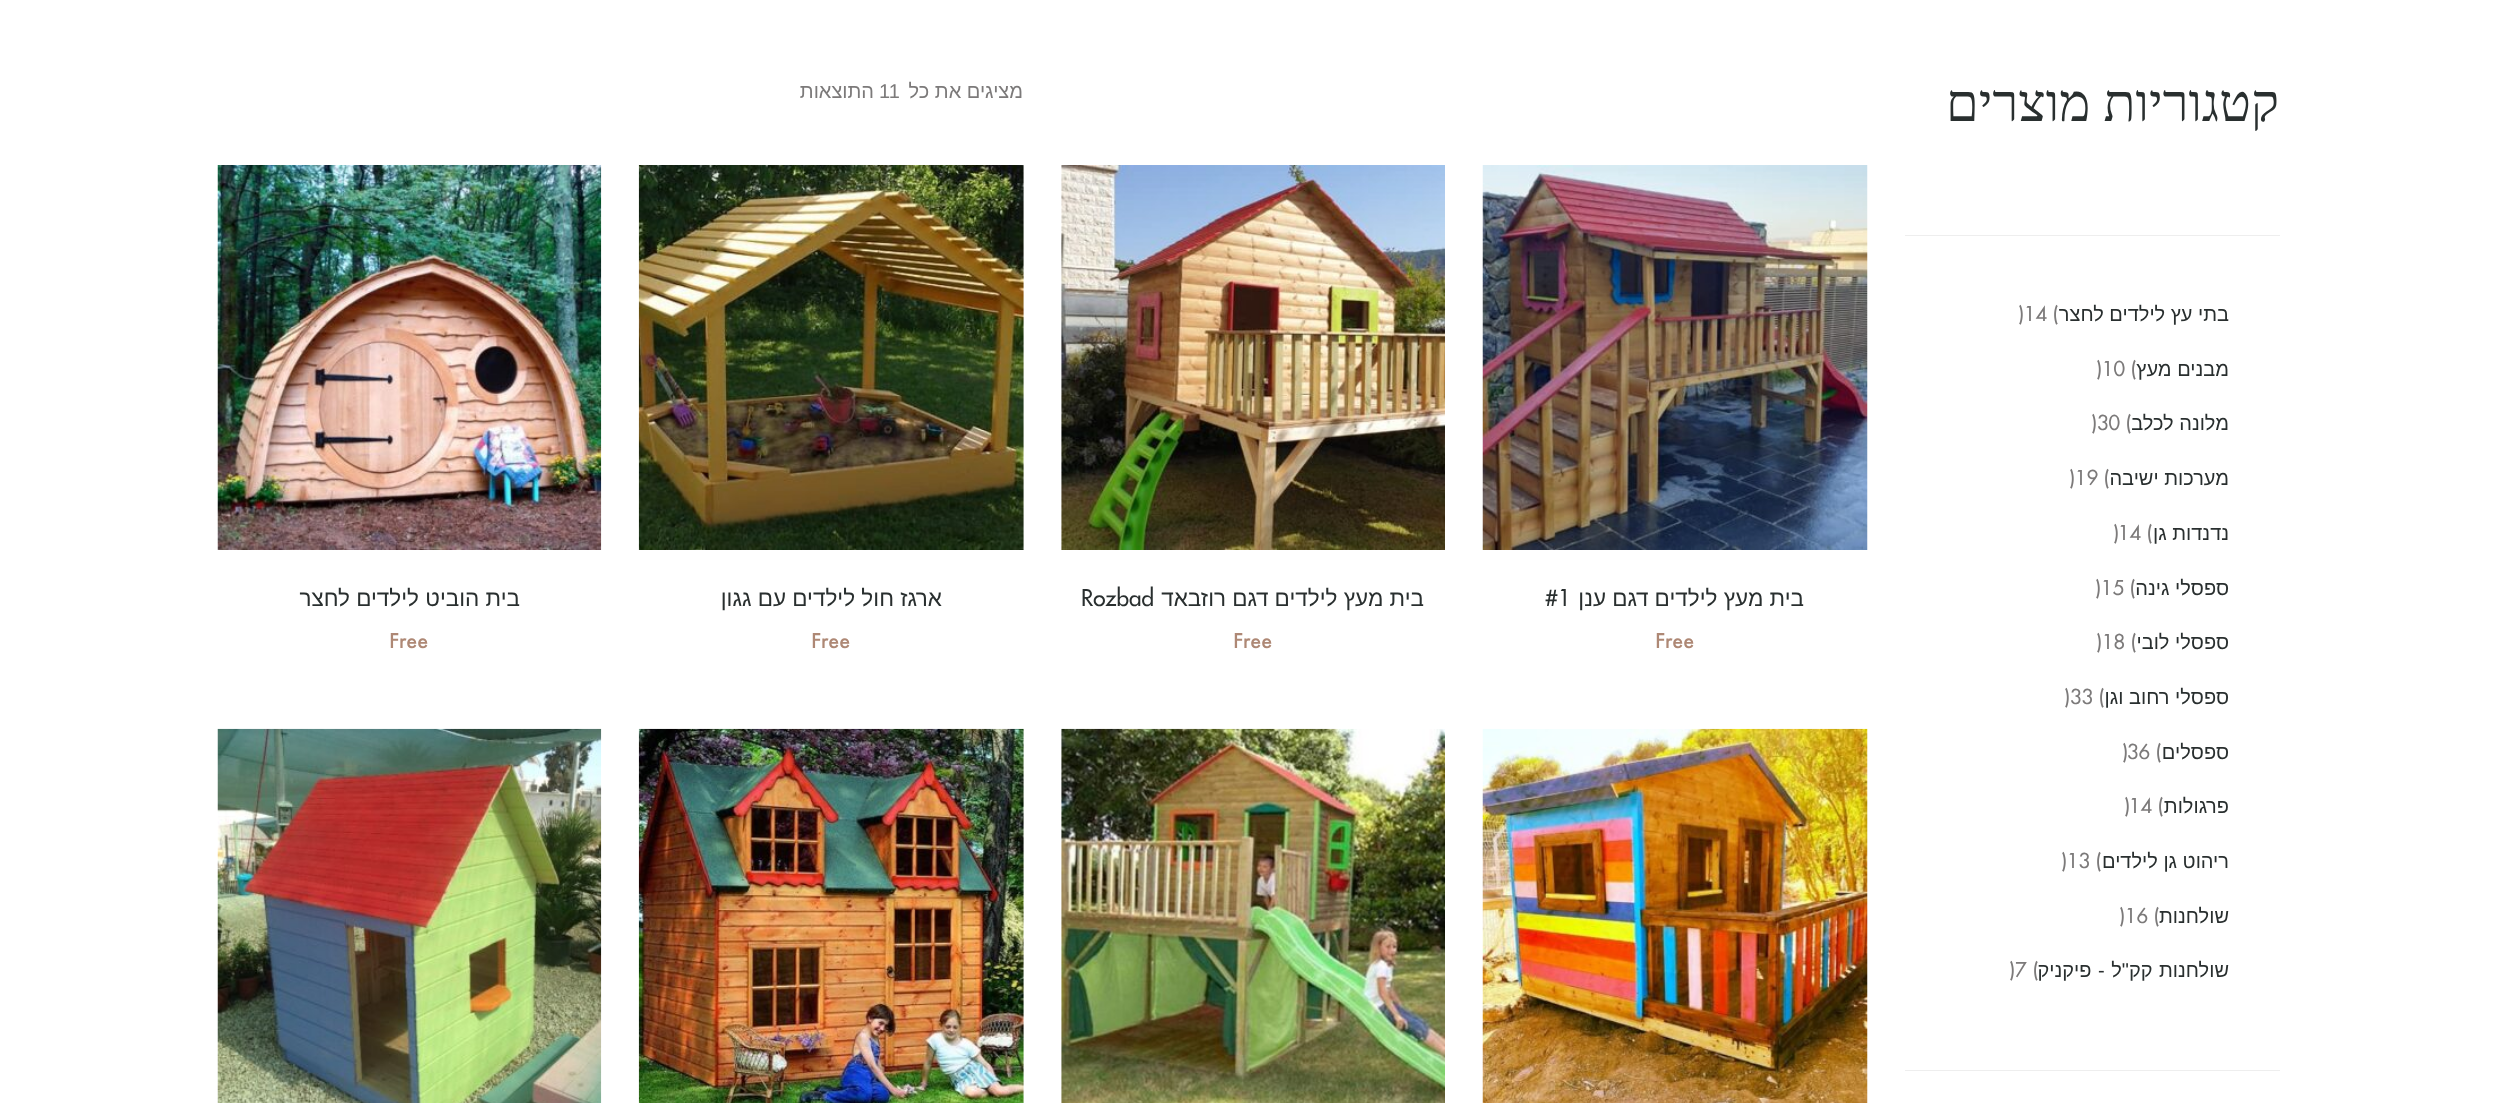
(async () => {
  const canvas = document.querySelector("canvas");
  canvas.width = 2496;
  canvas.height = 1103;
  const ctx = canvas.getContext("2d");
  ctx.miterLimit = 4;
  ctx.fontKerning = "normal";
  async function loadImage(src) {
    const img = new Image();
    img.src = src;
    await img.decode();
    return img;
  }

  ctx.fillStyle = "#ffffff";
  ctx.fillRect(0, 0, 2496, 1103);
  ctx.fillStyle = "#eeeeee";
  ctx.fillRect(1905, 235, 375, 1);
  ctx.fillRect(1905, 1070, 375, 1);
  ctx.drawImage(await loadImage("img/1.png"), 1482, 165, 386, 385);
  ctx.drawImage(await loadImage("img/2.png"), 1061, 165, 384, 385);
  ctx.drawImage(await loadImage("img/3.png"), 638, 165, 386, 385);
  ctx.drawImage(await loadImage("img/4.png"), 217, 165, 385, 385);
  ctx.drawImage(await loadImage("img/5.png"), 1482, 728, 386, 375);
  ctx.drawImage(await loadImage("img/6.png"), 1061, 728, 384, 375);
  ctx.drawImage(await loadImage("img/7.png"), 638, 728, 386, 375);
  ctx.drawImage(await loadImage("img/8.png"), 217, 728, 385, 375);
  ctx.direction = "rtl";
  ctx.font = "52.5px Liberation Serif";
  ctx.fillStyle = "#292f2f";
  ctx.fillText("קטגוריות מוצרים", 2279, 121);
  ctx.font = "20px Liberation Sans";
  ctx.fillText("בתי עץ לילדים לחצר", 2229, 321);
  ctx.direction = "ltr";
  ctx.font = "500 20px Futura";
  ctx.fillStyle = "#7c7a7a";
  for (const [text, x, y] of [
    ["(", 2053, 321],
    ["14", 2024, 321],
    [")", 2018, 321],
  ]) {
    ctx.fillText(text, x, y);
  }
  ctx.direction = "rtl";
  ctx.font = "20px Liberation Sans";
  ctx.fillStyle = "#292f2f";
  ctx.fillText("מבנים מעץ", 2229, 376);
  ctx.direction = "ltr";
  ctx.font = "500 20px Futura";
  ctx.fillStyle = "#7c7a7a";
  for (const [text, x, y] of [
    ["(", 2131, 376],
    ["10", 2102, 376],
    [")", 2096, 376],
  ]) {
    ctx.fillText(text, x, y);
  }
  ctx.direction = "rtl";
  ctx.font = "20px Liberation Sans";
  ctx.fillStyle = "#292f2f";
  ctx.fillText("מלונה לכלב", 2229, 430);
  ctx.direction = "ltr";
  ctx.font = "500 20px Futura";
  ctx.fillStyle = "#7c7a7a";
  for (const [text, x, y] of [
    ["(", 2126, 430],
    ["30", 2097, 430],
    [")", 2091, 430],
  ]) {
    ctx.fillText(text, x, y);
  }
  ctx.direction = "rtl";
  ctx.font = "20px Liberation Sans";
  ctx.fillStyle = "#292f2f";
  ctx.fillText("מערכות ישיבה", 2229, 485);
  ctx.direction = "ltr";
  ctx.font = "500 20px Futura";
  ctx.fillStyle = "#7c7a7a";
  for (const [text, x, y] of [
    ["(", 2104, 485],
    ["19", 2075, 485],
    [")", 2069, 485],
  ]) {
    ctx.fillText(text, x, y);
  }
  ctx.direction = "rtl";
  ctx.font = "20px Liberation Sans";
  ctx.fillStyle = "#292f2f";
  ctx.fillText("נדנדות גן", 2229, 540);
  ctx.direction = "ltr";
  ctx.font = "500 20px Futura";
  ctx.fillStyle = "#7c7a7a";
  for (const [text, x, y] of [
    ["(", 2147, 540],
    ["14", 2118, 540],
    [")", 2113, 540],
  ]) {
    ctx.fillText(text, x, y);
  }
  ctx.direction = "rtl";
  ctx.font = "20px Liberation Sans";
  ctx.fillStyle = "#292f2f";
  ctx.fillText("ספסלי גינה", 2229, 595);
  ctx.direction = "ltr";
  ctx.font = "500 20px Futura";
  ctx.fillStyle = "#7c7a7a";
  for (const [text, x, y] of [
    ["(", 2130, 595],
    ["15", 2101, 595],
    [")", 2095, 595],
  ]) {
    ctx.fillText(text, x, y);
  }
  ctx.direction = "rtl";
  ctx.font = "20px Liberation Sans";
  ctx.fillStyle = "#292f2f";
  ctx.fillText("ספסלי לובי", 2229, 649);
  ctx.direction = "ltr";
  ctx.font = "500 20px Futura";
  ctx.fillStyle = "#7c7a7a";
  for (const [text, x, y] of [
    ["(", 2131, 649],
    ["18", 2102, 649],
    [")", 2096, 649],
  ]) {
    ctx.fillText(text, x, y);
  }
  ctx.direction = "rtl";
  ctx.font = "20px Liberation Sans";
  ctx.fillStyle = "#292f2f";
  ctx.fillText("ספסלי רחוב וגן", 2229, 704);
  ctx.direction = "ltr";
  ctx.font = "500 20px Futura";
  ctx.fillStyle = "#7c7a7a";
  for (const [text, x, y] of [
    ["(", 2099, 704],
    ["33", 2070, 704],
    [")", 2064, 704],
  ]) {
    ctx.fillText(text, x, y);
  }
  ctx.direction = "rtl";
  ctx.font = "20px Liberation Sans";
  ctx.fillStyle = "#292f2f";
  ctx.fillText("ספסלים", 2229, 759);
  ctx.direction = "ltr";
  ctx.font = "500 20px Futura";
  ctx.fillStyle = "#7c7a7a";
  for (const [text, x, y] of [
    ["(", 2156, 759],
    ["36", 2127, 759],
    [")", 2122, 759],
  ]) {
    ctx.fillText(text, x, y);
  }
  ctx.direction = "rtl";
  ctx.font = "20px Liberation Sans";
  ctx.fillStyle = "#292f2f";
  ctx.fillText("פרגולות", 2229, 813);
  ctx.direction = "ltr";
  ctx.font = "500 20px Futura";
  ctx.fillStyle = "#7c7a7a";
  for (const [text, x, y] of [
    ["(", 2158, 813],
    ["14", 2129, 813],
    [")", 2124, 813],
  ]) {
    ctx.fillText(text, x, y);
  }
  ctx.direction = "rtl";
  ctx.font = "20px Liberation Sans";
  ctx.fillStyle = "#292f2f";
  ctx.fillText("ריהוט גן לילדים", 2229, 868);
  ctx.direction = "ltr";
  ctx.font = "500 20px Futura";
  ctx.fillStyle = "#7c7a7a";
  for (const [text, x, y] of [
    ["(", 2096, 868],
    ["13", 2067, 868],
    [")", 2061, 868],
  ]) {
    ctx.fillText(text, x, y);
  }
  ctx.direction = "rtl";
  ctx.font = "20px Liberation Sans";
  ctx.fillStyle = "#292f2f";
  ctx.fillText("שולחנות", 2229, 923);
  ctx.direction = "ltr";
  ctx.font = "500 20px Futura";
  ctx.fillStyle = "#7c7a7a";
  for (const [text, x, y] of [
    ["(", 2154, 923],
    ["16", 2125, 923],
    [")", 2119, 923],
  ]) {
    ctx.fillText(text, x, y);
  }
  ctx.wordSpacing = "1px";
  ctx.direction = "rtl";
  ctx.font = "20px Liberation Sans";
  ctx.fillStyle = "#292f2f";
  ctx.fillText("שולחנות קק\"ל - פיקניק", 2229, 977);
  ctx.wordSpacing = "0px";
  ctx.direction = "ltr";
  ctx.font = "500 20px Futura";
  ctx.fillStyle = "#7c7a7a";
  for (const [text, x, y] of [
    ["(", 2033, 977],
    ["7", 2015, 977],
    [")", 2009, 977],
  ]) {
    ctx.fillText(text, x, y);
  }
  ctx.direction = "rtl";
  ctx.font = "20px Liberation Sans";
  ctx.fillText("מציגים את כל", 1023, 98);
  ctx.direction = "ltr";
  ctx.fillText("11", 879, 98);
  ctx.direction = "rtl";
  ctx.fillText("התוצאות", 874, 98);
  ctx.font = "22.5px Liberation Sans";
  ctx.fillStyle = "#292f2f";
  ctx.fillText("בית מעץ לילדים דגם ענן", 1804, 606);
  ctx.direction = "ltr";
  ctx.font = "500 22.5px Futura";
  ctx.fillText("#1", 1545, 606);
  ctx.font = "22.5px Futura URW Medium";
  ctx.fillStyle = "#ae8875";
  ctx.fillText("Free", 1655, 648);
  ctx.direction = "rtl";
  ctx.font = "22.5px Liberation Sans";
  ctx.fillStyle = "#292f2f";
  ctx.fillText("בית מעץ לילדים דגם רוזבאד", 1424, 606);
  ctx.direction = "ltr";
  ctx.font = "500 22.5px Futura";
  ctx.fillText("Rozbad", 1081, 606);
  ctx.font = "22.5px Futura URW Medium";
  ctx.fillStyle = "#ae8875";
  ctx.fillText("Free", 1233, 648);
  ctx.direction = "rtl";
  ctx.font = "22.5px Liberation Sans";
  ctx.fillStyle = "#292f2f";
  ctx.fillText("ארגז חול לילדים עם גגון", 942, 606);
  ctx.direction = "ltr";
  ctx.font = "22.5px Futura URW Medium";
  ctx.fillStyle = "#ae8875";
  ctx.fillText("Free", 811, 648);
  ctx.direction = "rtl";
  ctx.font = "22.5px Liberation Sans";
  ctx.fillStyle = "#292f2f";
  ctx.fillText("בית הוביט לילדים לחצר", 520, 606);
  ctx.direction = "ltr";
  ctx.font = "22.5px Futura URW Medium";
  ctx.fillStyle = "#ae8875";
  ctx.fillText("Free", 389, 648);
})();
